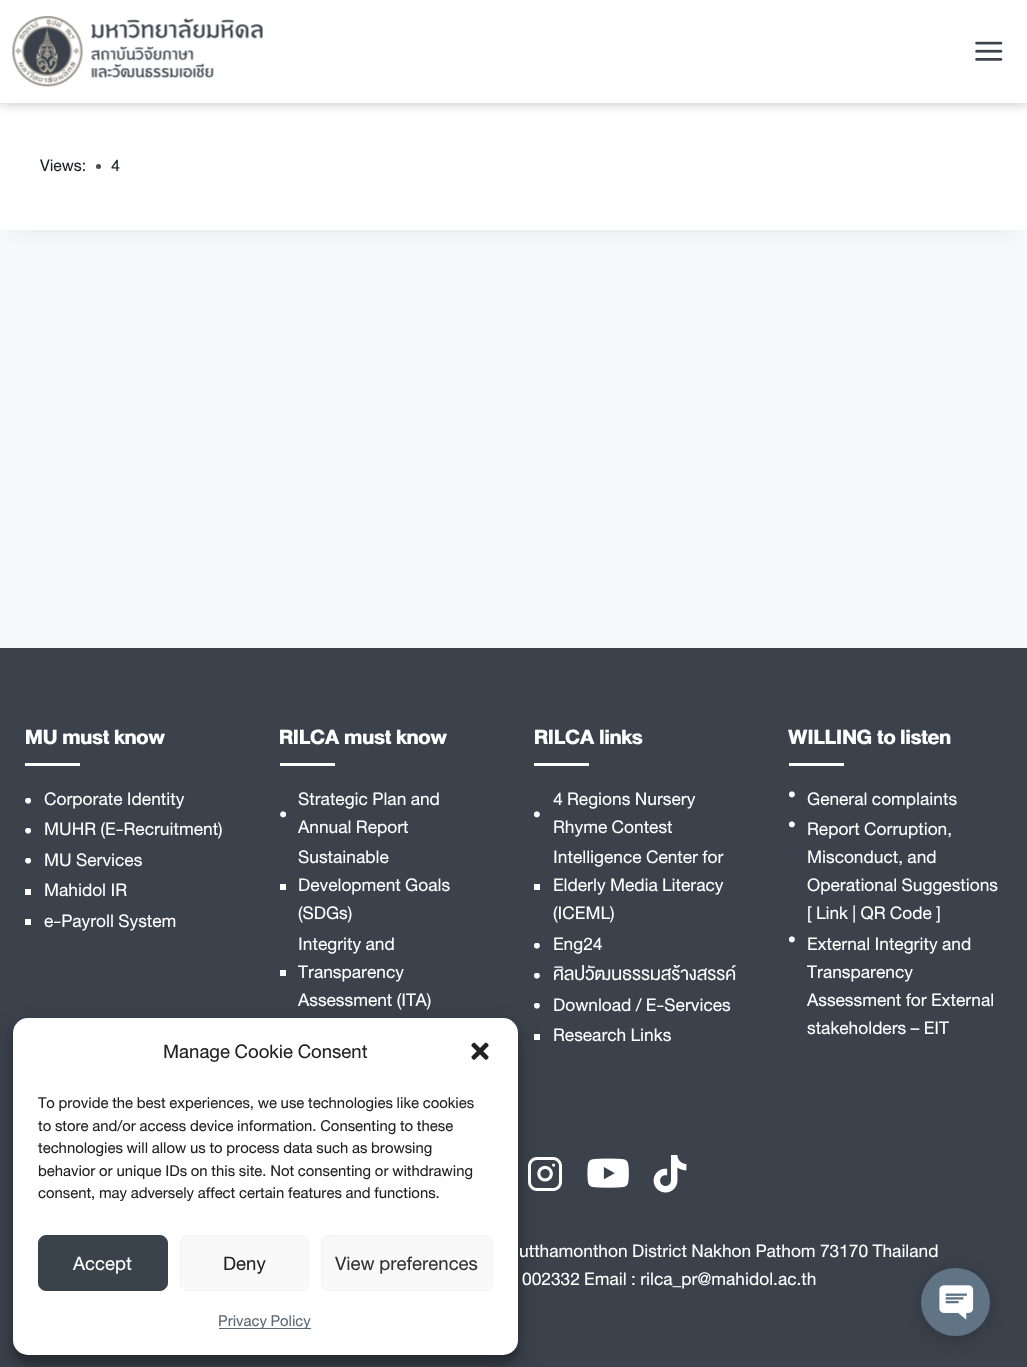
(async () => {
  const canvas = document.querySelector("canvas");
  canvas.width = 1027;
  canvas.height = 1367;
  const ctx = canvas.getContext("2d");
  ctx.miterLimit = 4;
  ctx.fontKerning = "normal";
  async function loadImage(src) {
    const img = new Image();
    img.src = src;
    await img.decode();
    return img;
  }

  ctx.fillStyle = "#f7fafc";
  ctx.fillRect(0, 0, 1027, 1367);
  ctx.fillStyle = "rgba(0, 0, 0, 0.05)";
  ctx.filter = "blur(9.5px)";
  ctx.beginPath();
  ctx.rect(13, 134, 1002, 102);
  ctx.fill();
  ctx.filter = "none";
  ctx.fillStyle = "#ffffff";
  ctx.beginPath();
  ctx.roundRect(0, 103, 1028, 127, 5);
  ctx.fill();
  ctx.fillStyle = "rgba(0, 0, 0, 0.22)";
  ctx.filter = "blur(6px)";
  ctx.beginPath();
  ctx.rect(0, 1, 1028, 103);
  ctx.fill();
  ctx.filter = "none";
  ctx.fillStyle = "#ffffff";
  ctx.fillRect(0, 0, 1027, 103);
  ctx.drawImage(await loadImage("img/1.png"), 12, 16, 251, 71);
  ctx.drawImage(await loadImage("img/2.png"), 975, 41, 28, 20);
  ctx.fillStyle = "#494d53";
  ctx.beginPath();
  ctx.arc(98.5, 166.5, 2.5, 0, Math.PI * 2);
  ctx.fill();
  ctx.fillStyle = "#3b424c";
  ctx.fillRect(0, 648, 1027, 719);
  ctx.fillStyle = "#ffffff";
  ctx.fillRect(25, 763, 55, 3);
  ctx.drawImage(await loadImage("img/3.png"), 25, 798, 6, 6);
  ctx.drawImage(await loadImage("img/3.png"), 25, 828, 6, 6);
  ctx.drawImage(await loadImage("img/3.png"), 25, 858, 6, 6);
  for (const [x, y, w, h, color] of [
    [25, 889, 6, 6, "#ffffff"],
    [25, 919, 6, 6, "#ffffff"],
    [280, 763, 55, 3, "#ffffff"],
  ]) {
    ctx.fillStyle = color;
    ctx.fillRect(x, y, w, h);
  }
  ctx.drawImage(await loadImage("img/4.png"), 280, 811, 6, 7);
  for (const [x, y, w, h, color] of [
    [280, 884, 6, 6, "#ffffff"],
    [280, 970, 6, 6, "#ffffff"],
    [534, 763, 55, 3, "#ffffff"],
  ]) {
    ctx.fillStyle = color;
    ctx.fillRect(x, y, w, h);
  }
  ctx.drawImage(await loadImage("img/5.png"), 534, 811, 6, 7);
  ctx.fillRect(534, 884, 6, 6);
  ctx.drawImage(await loadImage("img/6.png"), 534, 943, 6, 6);
  ctx.drawImage(await loadImage("img/6.png"), 534, 973, 6, 6);
  ctx.drawImage(await loadImage("img/6.png"), 534, 1003, 6, 6);
  ctx.fillRect(534, 1034, 6, 6);
  ctx.fillRect(789, 763, 55, 3);
  ctx.drawImage(await loadImage("img/5.png"), 789, 791, 6, 7);
  ctx.drawImage(await loadImage("img/5.png"), 789, 821, 6, 7);
  ctx.drawImage(await loadImage("img/5.png"), 789, 936, 6, 7);
  ctx.drawImage(await loadImage("img/7.png"), 528, 1157, 34, 34);
  ctx.drawImage(await loadImage("img/8.png"), 587, 1158, 42, 30);
  ctx.drawImage(await loadImage("img/9.png"), 653, 1155, 34, 38);
  ctx.fillStyle = "rgba(0, 0, 0, 0.23)";
  ctx.filter = "blur(4px)";
  ctx.beginPath();
  ctx.roundRect(13, 1025, 505, 338, 15);
  ctx.fill();
  ctx.filter = "none";
  ctx.fillStyle = "rgba(0, 0, 0, 0.19)";
  ctx.filter = "blur(12.5px)";
  ctx.beginPath();
  ctx.roundRect(13, 1030, 505, 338, 15);
  ctx.fill();
  ctx.filter = "none";
  ctx.fillStyle = "#ffffff";
  ctx.beginPath();
  ctx.roundRect(13, 1018, 505, 337, 15);
  ctx.fill();
  ctx.drawImage(await loadImage("img/10.png"), 471, 1042, 18, 18);
  ctx.fillStyle = "#3a424c";
  ctx.beginPath();
  ctx.roundRect(38.5, 1235.5, 129, 55, 7.5);
  ctx.fill();
  ctx.strokeStyle = "#3a424c";
  ctx.stroke();
  ctx.fillStyle = "#f9f9f9";
  ctx.beginPath();
  ctx.roundRect(180.5, 1235.5, 128, 55, 7.5);
  ctx.fill();
  ctx.strokeStyle = "#f2f2f2";
  ctx.stroke();
  ctx.beginPath();
  ctx.roundRect(321.5, 1235.5, 171, 55, 7.5);
  ctx.fill();
  ctx.stroke();
  ctx.fillStyle = "#5b6873";
  ctx.fillRect(219, 1328, 92, 1);
  ctx.fillStyle = "rgba(0, 0, 0, 0.2)";
  ctx.filter = "blur(7.5px)";
  ctx.beginPath();
  ctx.roundRect(921, 1271, 69, 69, 34.5);
  ctx.fill();
  ctx.filter = "none";
  ctx.fillStyle = "#607486";
  ctx.beginPath();
  ctx.roundRect(921, 1268, 69, 68, 34);
  ctx.fill();
  ctx.drawImage(await loadImage("img/11.png"), 939, 1285, 35, 35);
  ctx.font = "16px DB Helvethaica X";
  ctx.fillStyle = "#1c2028";
  ctx.fillText("Views:", 40, 171);
  ctx.fillText("4", 111, 171);
  ctx.font = "900 20px DB Helvethaica X";
  ctx.fillStyle = "#ffffff";
  ctx.fillText("MU must know", 25, 744);
  ctx.font = "17.5px DB Helvethaica X";
  for (const [text, x, y] of [
    ["Corporate Identity", 44, 805],
    ["MUHR (E-Recruitment)", 44, 835],
    ["MU Services", 44, 866],
    ["Mahidol IR", 44, 896],
    ["e-Payroll System", 44, 927],
  ]) {
    ctx.fillText(text, x, y);
  }
  ctx.font = "900 20px DB Helvethaica X";
  ctx.fillText("RILCA must know", 279, 744);
  ctx.font = "17.5px DB Helvethaica X";
  for (const [text, x, y] of [
    ["Strategic Plan and", 298, 805],
    ["Annual Report", 298, 833],
    ["Sustainable", 298, 863],
    ["Development Goals", 298, 891],
    ["(SDGs)", 298, 919],
    ["Integrity and", 298, 950],
    ["Transparency", 298, 978],
    ["Assessment (ITA)", 298, 1006],
  ]) {
    ctx.fillText(text, x, y);
  }
  ctx.font = "900 20px DB Helvethaica X";
  ctx.fillText("RILCA links", 534, 744);
  ctx.font = "17.5px DB Helvethaica X";
  for (const [text, x, y] of [
    ["4 Regions Nursery", 553, 805],
    ["Rhyme Contest", 553, 833],
    ["Intelligence Center for", 553, 863],
    ["Elderly Media Literacy", 553, 891],
    ["(ICEML)", 553, 919],
    ["Eng24", 553, 950],
    ["ศิลปวัฒนธรรมสร้างสรรค์", 553, 980],
    ["Download / E-Services", 553, 1011],
    ["Research Links", 553, 1041],
  ]) {
    ctx.fillText(text, x, y);
  }
  ctx.font = "900 20px DB Helvethaica X";
  ctx.fillText("WILLING to listen", 788, 744);
  ctx.font = "17.5px DB Helvethaica X";
  for (const [text, x, y] of [
    ["General complaints", 807, 805],
    ["Report Corruption,", 807, 835],
    ["Misconduct, and", 807, 863],
    ["Operational Suggestions", 807, 891],
    ["[ Link | QR Code ]", 807, 919],
    ["External Integrity and", 807, 950],
    ["Transparency", 807, 978],
    ["Assessment for External", 807, 1006],
    ["stakeholders – EIT", 807, 1034],
    ["utthamonthon District Nakhon Pathom 73170 Thailand", 519, 1257],
    ["002332 Email : rilca_pr@mahidol.ac.th", 522, 1285],
  ]) {
    ctx.fillText(text, x, y);
  }
  ctx.font = "18.75px DB Helvethaica X";
  ctx.fillStyle = "#222222";
  ctx.fillText("Manage Cookie Consent", 163, 1058);
  ctx.font = "15px DB Helvethaica X";
  for (const [text, x, y] of [
    ["To provide the best experiences, we use technologies like cookies", 38, 1108],
    ["to store and/or access device information. Consenting to these", 38, 1131],
    ["technologies will allow us to process data such as browsing", 38, 1153],
    ["behavior or unique IDs on this site. Not consenting or withdrawing", 38, 1176],
    ["consent, may adversely affect certain features and functions.", 38, 1198],
  ]) {
    ctx.fillText(text, x, y);
  }
  ctx.font = "18.75px DB Helvethaica X";
  ctx.fillStyle = "#ffffff";
  ctx.fillText("Accept", 73, 1270);
  ctx.fillStyle = "#222222";
  ctx.fillText("Deny", 223, 1270);
  ctx.fillStyle = "#333333";
  ctx.fillText("View preferences", 335, 1270);
  ctx.font = "15px DB Helvethaica X";
  ctx.fillStyle = "#5b6873";
  ctx.fillText("Privacy Policy", 218, 1326);
})();
